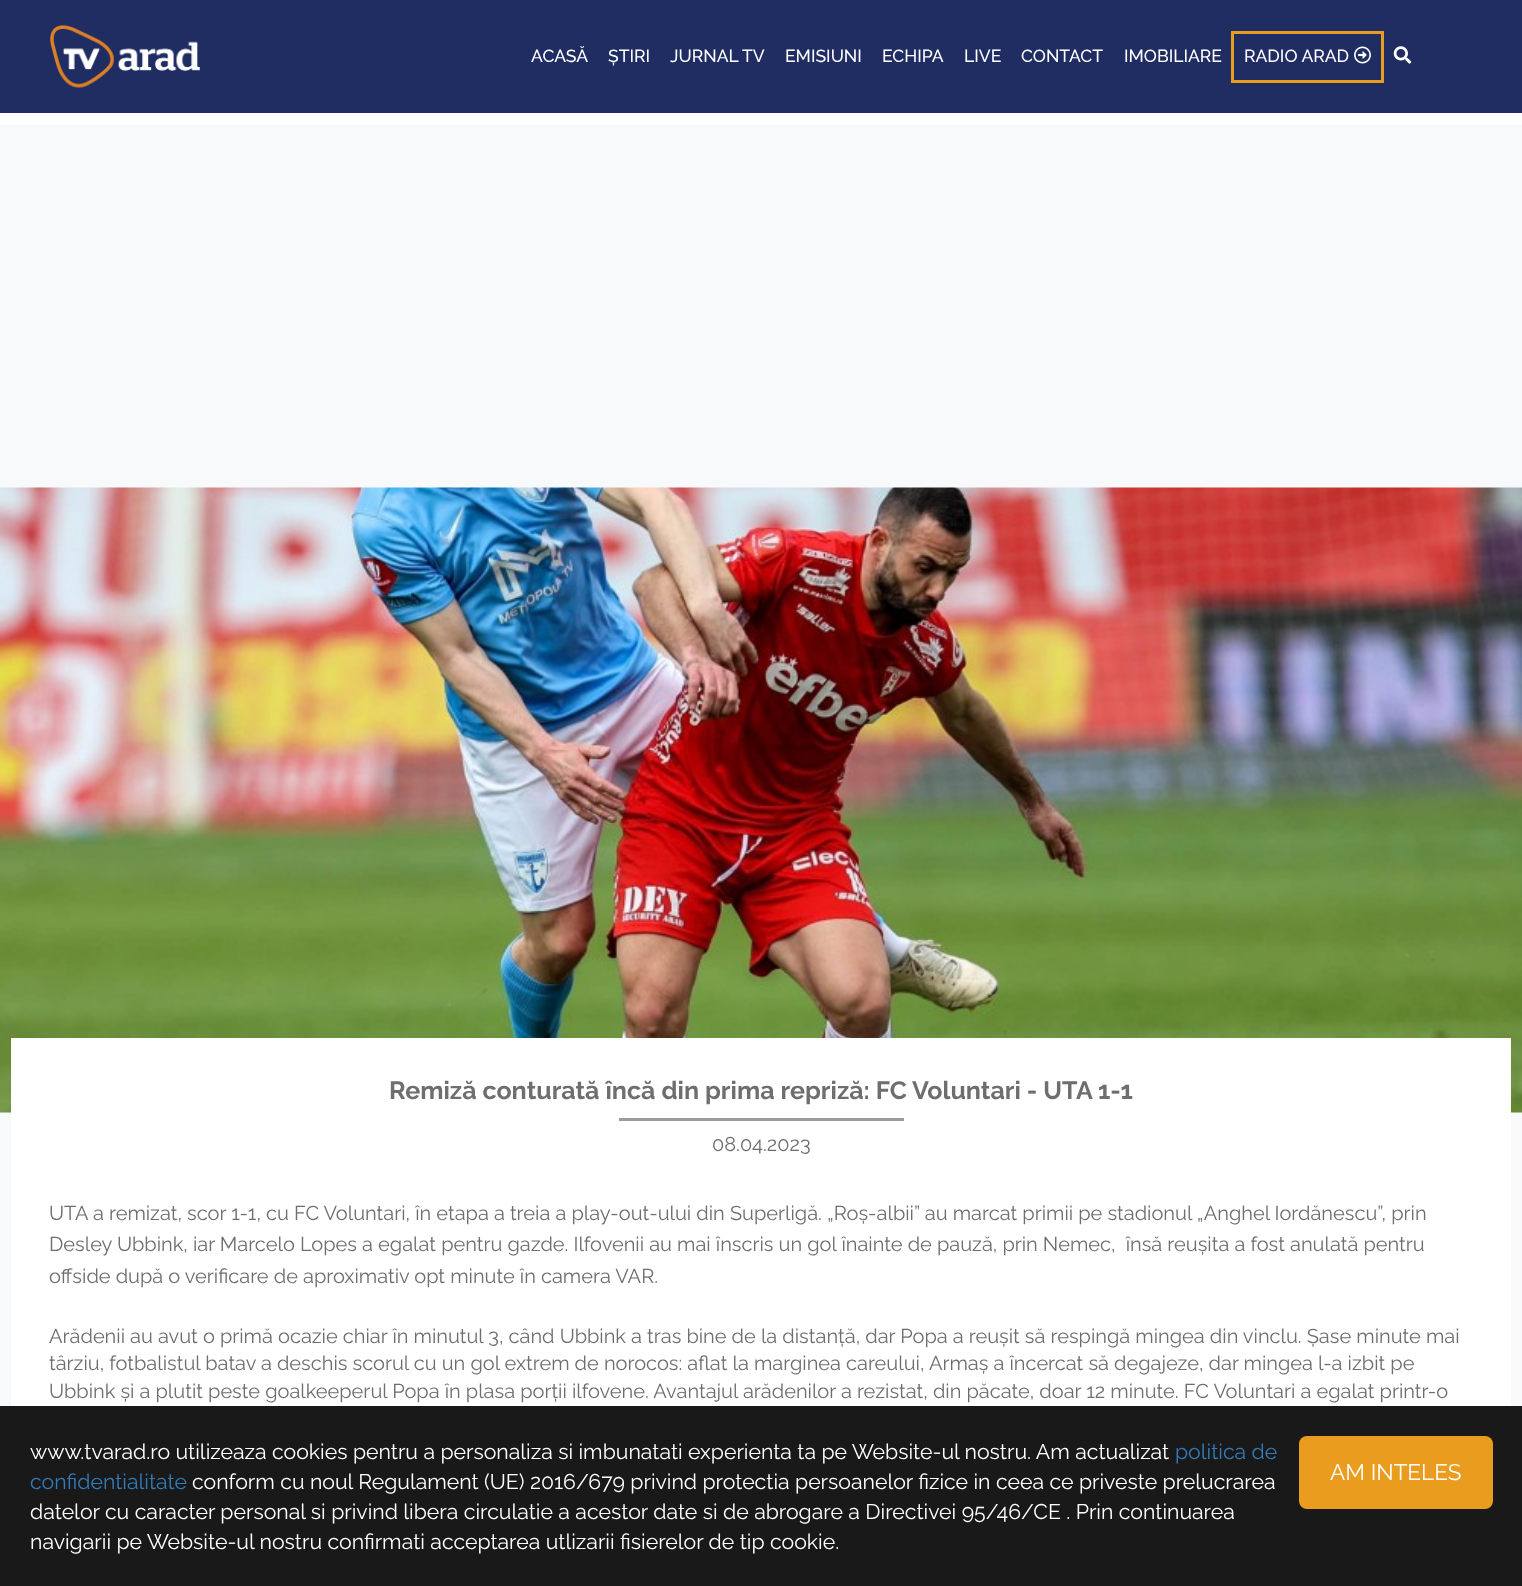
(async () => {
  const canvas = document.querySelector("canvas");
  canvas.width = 1522;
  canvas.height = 1586;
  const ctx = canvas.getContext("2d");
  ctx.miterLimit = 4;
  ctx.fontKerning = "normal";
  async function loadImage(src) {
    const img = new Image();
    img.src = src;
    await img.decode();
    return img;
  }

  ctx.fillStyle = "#ffffff";
  ctx.fillRect(0, 0, 1522, 1586);
  ctx.fillStyle = "#1f2d63";
  ctx.fillRect(0, 0, 1522, 113);
  ctx.drawImage(await loadImage("img/1.png"), 50, 25, 150, 63);
  ctx.strokeStyle = "#ea9c1f";
  ctx.lineWidth = 3;
  ctx.strokeRect(1232.5, 32.5, 150, 49);
  ctx.drawImage(await loadImage("img/2.png"), 1354, 46, 17, 18);
  ctx.drawImage(await loadImage("img/3.png"), 1393, 46, 19, 18);
  ctx.fillStyle = "#f8f9fa";
  ctx.fillRect(0, 125, 1522, 1281);
  ctx.fillStyle = "#191919";
  ctx.fillRect(0, 1406, 1522, 180);
  ctx.drawImage(await loadImage("img/4.png"), 0, 487, 1522, 626);
  ctx.fillStyle = "#ffffff";
  ctx.fillRect(11, 1038, 1500, 368);
  ctx.fillStyle = "#9b9b9b";
  ctx.fillRect(619, 1118, 285, 3);
  ctx.fillStyle = "#ea9c1f";
  ctx.beginPath();
  ctx.roundRect(1299, 1436, 194, 73, 8);
  ctx.fill();
  ctx.font = "500 17.5px Raleway";
  ctx.fillStyle = "#ffffff";
  for (const [text, x, y] of [
    ["ACASĂ", 531, 62],
    ["ȘTIRI", 608, 62],
    ["JURNAL TV", 670, 62],
    ["EMISIUNI", 785, 62],
    ["ECHIPA", 882, 62],
    ["LIVE", 964, 62],
    ["CONTACT", 1021, 62],
    ["IMOBILIARE", 1124, 62],
    ["RADIO ARAD", 1244, 62],
  ]) {
    ctx.fillText(text, x, y);
  }
  ctx.font = "bold 25px Raleway";
  ctx.fillStyle = "#6e6e6e";
  ctx.fillText("Remiză conturată încă din prima repriză: FC Voluntari - UTA 1-1", 389, 1099);
  ctx.font = "20px Raleway";
  for (const [text, x, y] of [
    ["08.04.2023", 712, 1151],
    ["UTA a remizat, scor 1-1, cu FC Voluntari, în etapa a treia a play-out-ului din Superligă. „Roș-albii” au marcat primii pe stadionul „Anghel Iordănescu”, prin", 49, 1220],
    ["Desley Ubbink, iar Marcelo Lopes a egalat pentru gazde. Ilfovenii au mai înscris un gol înainte de pauză, prin Nemec,  însă reușita a fost anulată pentru", 49, 1251],
    ["offside după o verificare de aproximativ opt minute în camera VAR.", 49, 1283],
    ["Arădenii au avut o primă ocazie chiar în minutul 3, când Ubbink a tras bine de la distanță, dar Popa a reușit să respingă mingea din vinclu. Șase minute mai", 49, 1343],
    ["târziu, fotbalistul batav a deschis scorul cu un gol extrem de norocos: aflat la marginea careului, Armaș a încercat să degajeze, dar mingea l-a izbit pe", 49, 1370],
    ["Ubbink și a plutit peste goalkeeperul Popa în plasa porții ilfovene. Avantajul arădenilor a rezistat, din păcate, doar 12 minute. FC Voluntari a egalat printr-o", 49, 1398],
  ]) {
    ctx.fillText(text, x, y);
  }
  ctx.font = "21.25px Raleway";
  ctx.fillStyle = "#ffffff";
  ctx.fillText("www.tvarad.ro utilizeaza cookies pentru a personaliza si imbunatati experienta ta pe Website-ul nostru. Am actualizat", 30, 1459);
  ctx.fillStyle = "#337ab7";
  ctx.fillText("politica de", 1175, 1459);
  ctx.fillText("confidentialitate", 30, 1489);
  ctx.fillStyle = "#ffffff";
  ctx.fillText("conform cu noul Regulament (UE) 2016/679 privind protectia persoanelor fizice in ceea ce priveste prelucrarea", 192, 1489);
  ctx.font = "22.5px Raleway";
  ctx.fillText("AM INTELES", 1330, 1480);
  ctx.font = "21.25px Raleway";
  ctx.fillText("datelor cu caracter personal si privind libera circulatie a acestor date si de abrogare a Directivei 95/46/CE . Prin continuarea", 30, 1519);
  ctx.fillText("navigarii pe Website-ul nostru confirmati acceptarea utlizarii fisierelor de tip cookie.", 30, 1549);
})();
